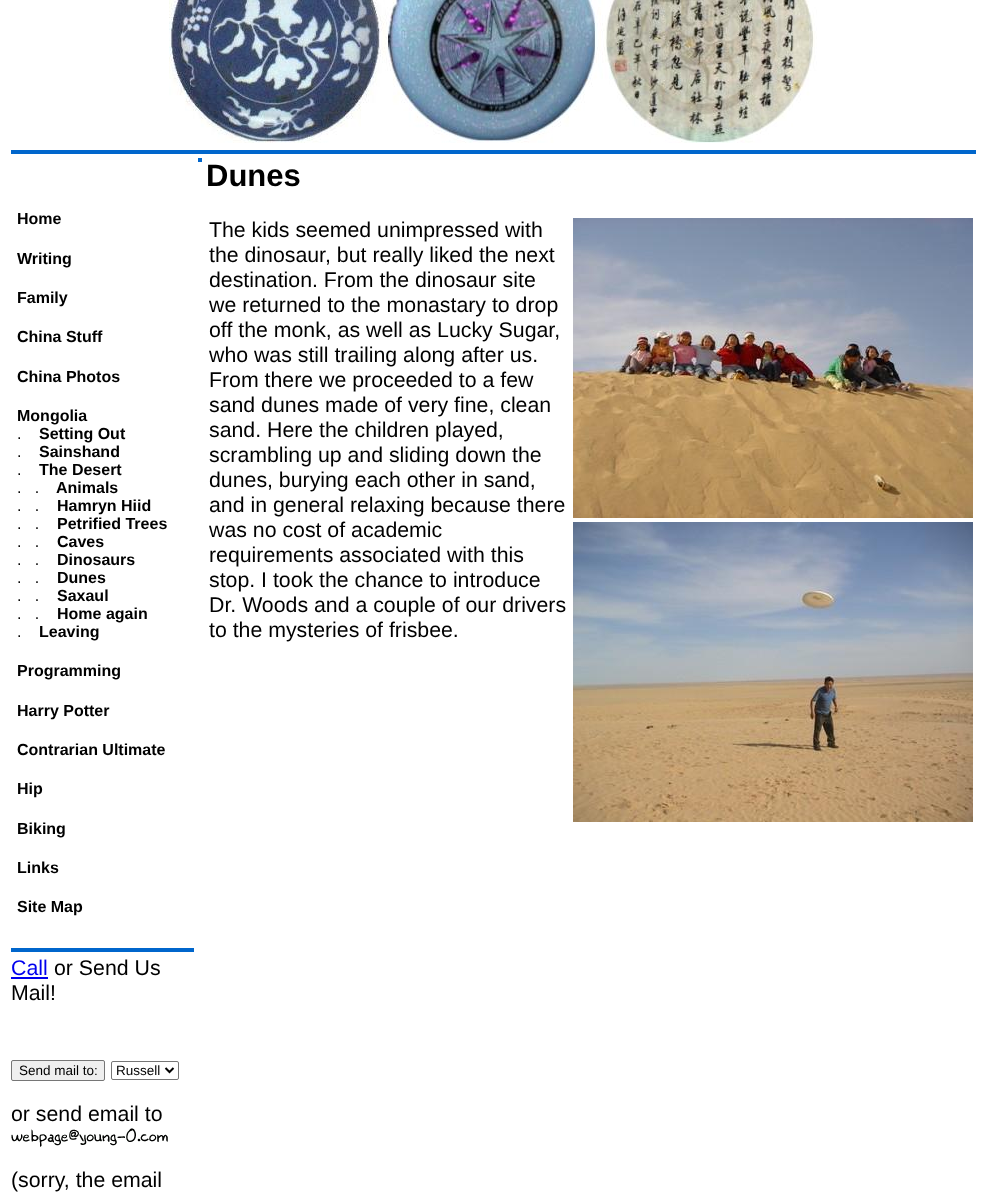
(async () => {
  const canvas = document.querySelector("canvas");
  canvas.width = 987;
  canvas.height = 1204;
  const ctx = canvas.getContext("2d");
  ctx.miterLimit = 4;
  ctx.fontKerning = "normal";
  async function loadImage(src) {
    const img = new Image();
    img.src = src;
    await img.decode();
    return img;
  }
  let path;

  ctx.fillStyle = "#ffffff";
  ctx.fillRect(0, 0, 987, 1204);
  ctx.drawImage(await loadImage("img/1.png"), 169, 0, 648, 143);
  ctx.fillStyle = "#0066cc";
  ctx.fillRect(11, 150, 965, 4);
  ctx.fillRect(198, 158, 4, 4);
  ctx.drawImage(await loadImage("img/2.png"), 573, 218, 400, 300);
  ctx.drawImage(await loadImage("img/3.png"), 573, 522, 400, 300);
  ctx.fillRect(11, 948, 183, 4);
  ctx.fillStyle = "#0000ee";
  ctx.fillRect(11, 977, 37, 2);
  ctx.fillStyle = "#efefef";
  ctx.beginPath();
  ctx.roundRect(11.5, 1060.5, 93, 20, 1.5);
  ctx.fill();
  ctx.strokeStyle = "#767676";
  ctx.stroke();
  ctx.beginPath();
  ctx.roundRect(111.5, 1061.5, 67, 18, 1.5);
  ctx.stroke();
  path = new Path2D("M165.5 1068L169.5 1072L173.5 1068");
  ctx.strokeStyle = "#000000";
  ctx.lineWidth = 2;
  ctx.stroke(path);
  ctx.drawImage(await loadImage("img/4.png"), 11, 1128, 157, 19);
  ctx.font = "bold 16px Liberation Sans";
  ctx.fillStyle = "#000000";
  for (const [text, x, y] of [
    ["Home", 17, 224],
    ["Writing", 17, 264],
    ["Family", 17, 303],
    ["China Stuff", 17, 342],
    ["China Photos", 17, 382],
    ["Mongolia", 17, 421],
  ]) {
    ctx.fillText(text, x, y);
  }
  ctx.font = "16px Liberation Sans";
  ctx.fillText(".", 17, 439);
  ctx.font = "bold 16px Liberation Sans";
  ctx.fillText("Setting Out", 39, 439);
  ctx.font = "16px Liberation Sans";
  ctx.fillText(".", 17, 457);
  ctx.font = "bold 16px Liberation Sans";
  ctx.fillText("Sainshand", 39, 457);
  ctx.font = "16px Liberation Sans";
  ctx.fillText(".", 17, 475);
  ctx.font = "bold 16px Liberation Sans";
  ctx.fillText("The Desert", 39, 475);
  ctx.font = "16px Liberation Sans";
  ctx.fillText(".   .", 17, 493);
  ctx.font = "bold 16px Liberation Sans";
  ctx.fillText("Animals", 56, 493);
  ctx.font = "16px Liberation Sans";
  ctx.fillText(".   .", 17, 511);
  ctx.font = "bold 16px Liberation Sans";
  ctx.fillText("Hamryn Hiid", 57, 511);
  ctx.font = "16px Liberation Sans";
  ctx.fillText(".   .", 17, 529);
  ctx.font = "bold 16px Liberation Sans";
  ctx.fillText("Petrified Trees", 57, 529);
  ctx.font = "16px Liberation Sans";
  ctx.fillText(".   .", 17, 547);
  ctx.font = "bold 16px Liberation Sans";
  ctx.fillText("Caves", 57, 547);
  ctx.font = "16px Liberation Sans";
  ctx.fillText(".   .", 17, 565);
  ctx.font = "bold 16px Liberation Sans";
  ctx.fillText("Dinosaurs", 57, 565);
  ctx.font = "16px Liberation Sans";
  ctx.fillText(".   .", 17, 583);
  ctx.font = "bold 16px Liberation Sans";
  ctx.fillText("Dunes", 57, 583);
  ctx.font = "16px Liberation Sans";
  ctx.fillText(".   .", 17, 601);
  ctx.font = "bold 16px Liberation Sans";
  ctx.fillText("Saxaul", 57, 601);
  ctx.font = "16px Liberation Sans";
  ctx.fillText(".   .", 17, 619);
  ctx.font = "bold 16px Liberation Sans";
  ctx.fillText("Home again", 57, 619);
  ctx.font = "16px Liberation Sans";
  ctx.fillText(".", 17, 637);
  ctx.font = "bold 16px Liberation Sans";
  for (const [text, x, y] of [
    ["Leaving", 39, 637],
    ["Programming", 17, 676],
    ["Harry Potter", 17, 716],
    ["Contrarian Ultimate", 17, 755],
    ["Hip", 17, 794],
    ["Biking", 17, 834],
    ["Links", 17, 873],
    ["Site Map", 17, 912],
  ]) {
    ctx.fillText(text, x, y);
  }
  ctx.font = "bold 31px Liberation Sans";
  ctx.fillText("Dunes", 206, 186);
  ctx.font = "21.3px Liberation Sans";
  for (const [text, x, y] of [
    ["The kids seemed unimpressed with", 209, 237],
    ["the dinosaur, but really liked the next", 209, 262],
    ["destination. From the dinosaur site", 209, 287],
    ["we returned to the monastary to drop", 209, 312],
    ["off the monk, as well as Lucky Sugar,", 209, 337],
    ["who was still trailing along after us.", 209, 362],
    ["From there we proceeded to a few", 209, 387],
    ["sand dunes made of very fine, clean", 209, 412],
    ["sand. Here the children played,", 209, 437],
    ["scrambling up and sliding down the", 209, 462],
    ["dunes, burying each other in sand,", 209, 487],
    ["and in general relaxing because there", 209, 512],
    ["was no cost of academic", 209, 537],
    ["requirements associated with this", 209, 562],
    ["stop. I took the chance to introduce", 209, 587],
    ["Dr. Woods and a couple of our drivers", 209, 612],
    ["to the mysteries of frisbee.", 209, 637],
  ]) {
    ctx.fillText(text, x, y);
  }
  ctx.fillStyle = "#0000ee";
  ctx.fillText("Call", 11, 975);
  ctx.fillStyle = "#000000";
  ctx.fillText("or Send Us", 54, 975);
  ctx.fillText("Mail!", 11, 1000);
  ctx.font = "13.5px Liberation Sans";
  ctx.fillText("Send mail to:", 19, 1075);
  ctx.fillText("Russell", 116, 1075);
  ctx.font = "21.3px Liberation Sans";
  ctx.fillText("or send email to", 11, 1121);
  ctx.fillText("(sorry, the email", 11, 1187);
})();
